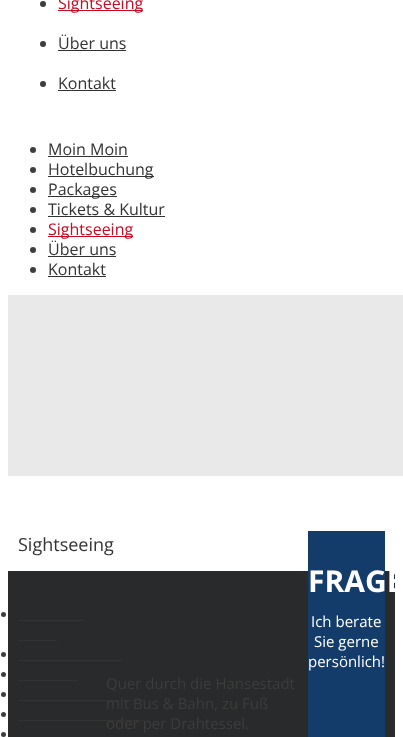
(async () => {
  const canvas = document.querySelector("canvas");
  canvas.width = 403;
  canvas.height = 737;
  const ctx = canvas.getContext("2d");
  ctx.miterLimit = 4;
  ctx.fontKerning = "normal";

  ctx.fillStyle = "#ffffff";
  ctx.fillRect(0, 0, 403, 737);
  ctx.fillStyle = "#3d3d3d";
  ctx.beginPath();
  ctx.arc(43, 4, 3, 0, Math.PI * 2);
  ctx.fill();
  ctx.fillStyle = "#ca0922";
  ctx.fillRect(58, 10, 85, 1);
  ctx.fillStyle = "#3d3d3d";
  ctx.beginPath();
  ctx.arc(43, 44, 3, 0, Math.PI * 2);
  ctx.fill();
  ctx.fillStyle = "#333333";
  ctx.fillRect(58, 50, 68, 1);
  ctx.fillStyle = "#3d3d3d";
  ctx.beginPath();
  ctx.arc(43, 84, 3, 0, Math.PI * 2);
  ctx.fill();
  ctx.fillStyle = "#333333";
  ctx.fillRect(58, 90, 58, 1);
  ctx.fillStyle = "#3d3d3d";
  ctx.beginPath();
  ctx.arc(33, 150, 3, 0, Math.PI * 2);
  ctx.fill();
  ctx.fillStyle = "#333333";
  ctx.fillRect(48, 156, 80, 1);
  ctx.fillStyle = "#3d3d3d";
  ctx.beginPath();
  ctx.arc(33, 170, 3, 0, Math.PI * 2);
  ctx.fill();
  ctx.fillStyle = "#333333";
  ctx.fillRect(48, 176, 106, 1);
  ctx.fillStyle = "#3d3d3d";
  ctx.beginPath();
  ctx.arc(33, 190, 3, 0, Math.PI * 2);
  ctx.fill();
  ctx.fillStyle = "#333333";
  ctx.fillRect(48, 196, 69, 1);
  ctx.fillStyle = "#3d3d3d";
  ctx.beginPath();
  ctx.arc(33, 210, 3, 0, Math.PI * 2);
  ctx.fill();
  ctx.fillStyle = "#333333";
  ctx.fillRect(48, 216, 117, 1);
  ctx.fillStyle = "#3d3d3d";
  ctx.beginPath();
  ctx.arc(33, 230, 3, 0, Math.PI * 2);
  ctx.fill();
  ctx.fillStyle = "#ca0922";
  ctx.fillRect(48, 236, 85, 1);
  ctx.fillStyle = "#3d3d3d";
  ctx.beginPath();
  ctx.arc(33, 250, 3, 0, Math.PI * 2);
  ctx.fill();
  ctx.fillStyle = "#333333";
  ctx.fillRect(48, 256, 68, 1);
  ctx.fillStyle = "#3d3d3d";
  ctx.beginPath();
  ctx.arc(33, 270, 3, 0, Math.PI * 2);
  ctx.fill();
  ctx.fillStyle = "#333333";
  ctx.fillRect(48, 276, 58, 1);
  ctx.fillStyle = "#e9e9e9";
  ctx.fillRect(8, 295, 395, 181);
  ctx.fillStyle = "#3d3d3d";
  ctx.beginPath();
  ctx.arc(3.5, 614.5, 2.5, 0, Math.PI * 2);
  ctx.fill();
  for (const [x, y, w, h, color] of [
    [8, 571, 387, 166, "#282a2b"],
    [18, 620, 66, 1, "#333333"],
    [18, 640, 39, 1, "#333333"],
  ]) {
    ctx.fillStyle = color;
    ctx.fillRect(x, y, w, h);
  }
  ctx.fillStyle = "#3d3d3d";
  ctx.beginPath();
  ctx.arc(3.5, 654.5, 2.5, 0, Math.PI * 2);
  ctx.fill();
  ctx.fillStyle = "#333333";
  ctx.fillRect(18, 660, 104, 1);
  ctx.fillStyle = "#3d3d3d";
  ctx.beginPath();
  ctx.arc(3.5, 674.5, 2.5, 0, Math.PI * 2);
  ctx.fill();
  ctx.fillStyle = "#333333";
  ctx.fillRect(18, 680, 60, 1);
  ctx.fillStyle = "#3d3d3d";
  ctx.beginPath();
  ctx.arc(3.5, 694.5, 2.5, 0, Math.PI * 2);
  ctx.fill();
  ctx.beginPath();
  ctx.arc(3.5, 714.5, 2.5, 0, Math.PI * 2);
  ctx.fill();
  ctx.beginPath();
  ctx.arc(3.5, 734.5, 2.5, 0, Math.PI * 2);
  ctx.fill();
  ctx.fillStyle = "#143c6b";
  ctx.fillRect(308, 531, 77, 206);
  ctx.font = "16px Open Sans";
  ctx.fillStyle = "#ca0922";
  ctx.fillText("Sightseeing", 58, 9);
  ctx.fillStyle = "#333333";
  for (const [text, x, y] of [
    ["Über uns", 58, 49],
    ["Kontakt", 58, 89],
    ["Moin Moin", 48, 155],
    ["Hotelbuchung", 48, 175],
    ["Packages", 48, 195],
    ["Tickets & Kultur", 48, 215],
  ]) {
    ctx.fillText(text, x, y);
  }
  ctx.fillStyle = "#ca0922";
  ctx.fillText("Sightseeing", 48, 235);
  ctx.fillStyle = "#333333";
  ctx.fillText("Über uns", 48, 255);
  ctx.fillText("Kontakt", 48, 275);
  ctx.font = "18px Open Sans";
  ctx.fillText("Sightseeing", 18, 551);
  ctx.font = "bold 30px Open Sans";
  ctx.fillStyle = "#ffffff";
  ctx.fillText("FRAGE", 308, 592);
  ctx.font = "15px Open Sans";
  for (const [text, x, y] of [
    ["Ich berate", 311, 627],
    ["Sie gerne", 314, 647],
    ["persönlich!", 308, 667],
  ]) {
    ctx.fillText(text, x, y);
  }
  ctx.fillStyle = "#3d3d3d";
  ctx.fillText("Quer durch die Hansestadt", 106, 689);
  ctx.fillText("mit Bus & Bahn, zu Fuß", 106, 709);
  ctx.fillStyle = "#333333";
  ctx.fillRect(18, 700, 127, 1);
  ctx.fillStyle = "#3d3d3d";
  ctx.fillText("oder per Drahtessel.", 106, 729);
  ctx.fillStyle = "#333333";
  ctx.fillRect(18, 720, 126, 1);
})();
